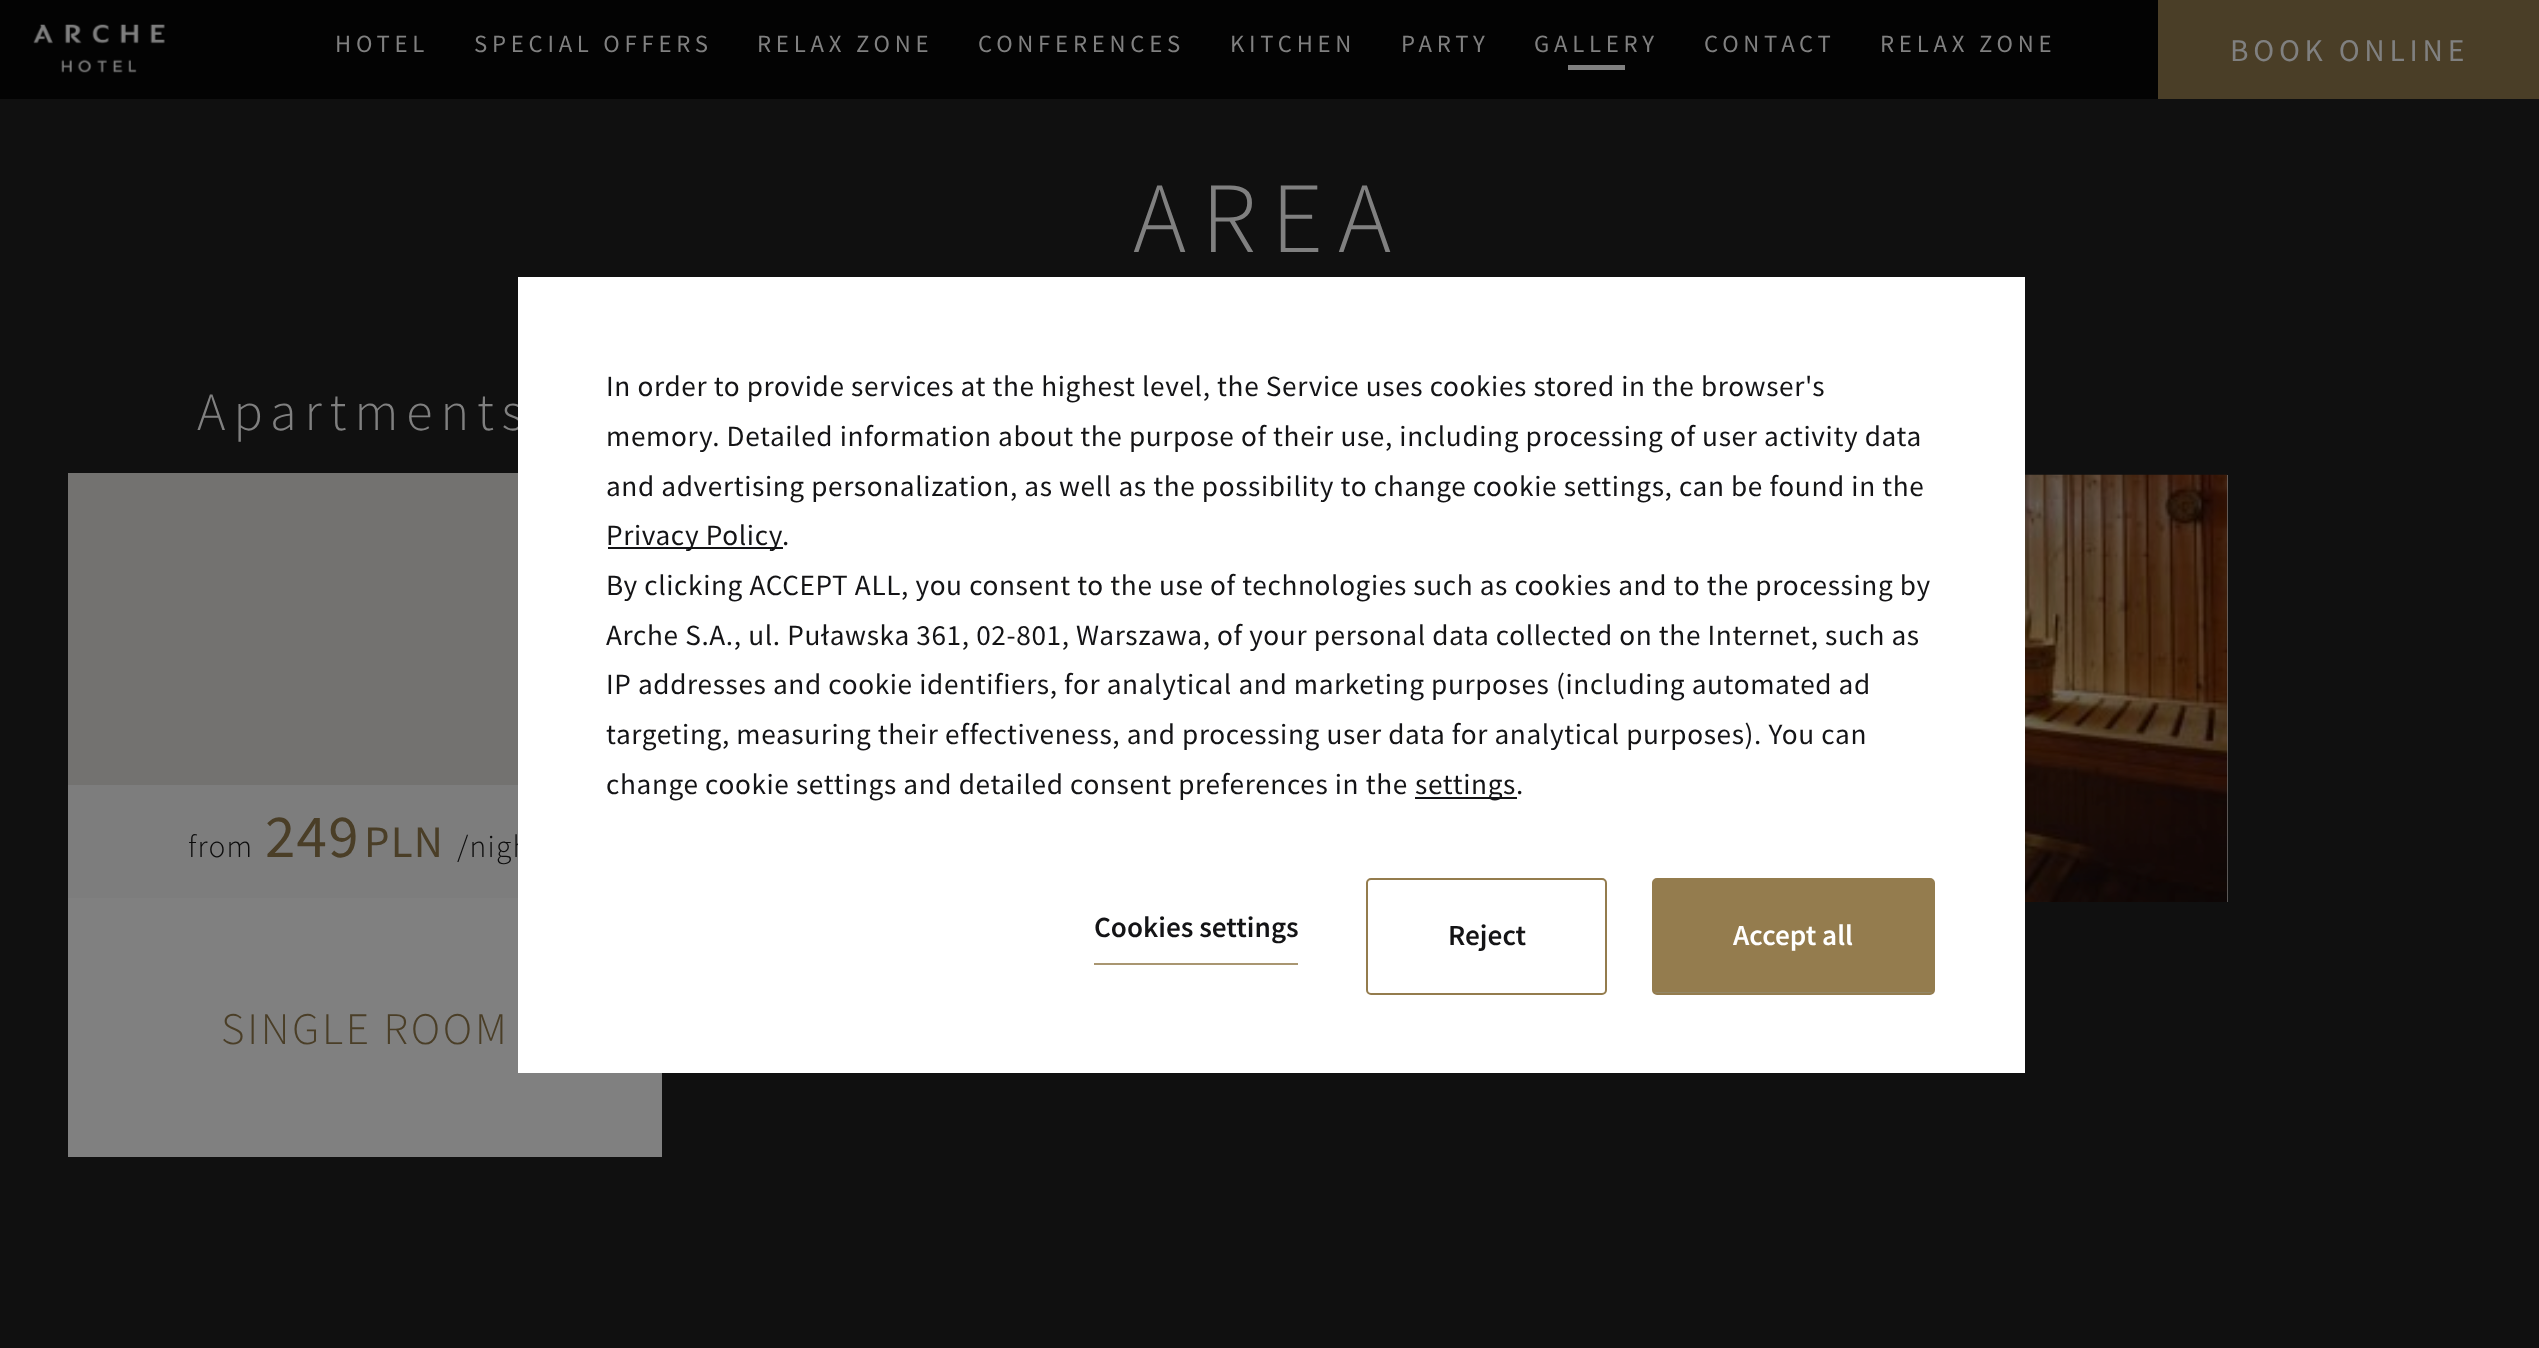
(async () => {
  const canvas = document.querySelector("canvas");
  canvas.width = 2539;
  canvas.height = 1348;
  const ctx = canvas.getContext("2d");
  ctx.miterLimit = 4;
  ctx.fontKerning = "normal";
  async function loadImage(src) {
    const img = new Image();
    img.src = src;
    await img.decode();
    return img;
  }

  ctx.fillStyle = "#101010";
  ctx.fillRect(0, 0, 2539, 1348);
  ctx.fillStyle = "#030303";
  ctx.fillRect(0, 0, 2158, 99);
  ctx.drawImage(await loadImage("img/1.png"), 33, 24, 132, 49);
  for (const [x, y, w, h, color] of [
    [1568, 65, 57, 5, "#808080"],
    [2158, 0, 381, 99, "#4a3e27"],
    [68, 473, 450, 312, "#737270"],
    [68, 785, 450, 113, "#7d7d7d"],
    [68, 898, 594, 259, "#808080"],
    [2227, 475, 1, 427, "#737270"],
  ]) {
    ctx.fillStyle = color;
    ctx.fillRect(x, y, w, h);
  }
  ctx.drawImage(await loadImage("img/2.png"), 2025, 474, 203, 428);
  ctx.letterSpacing = "4.75px";
  ctx.font = "24.75px Source Sans Pro";
  ctx.fillStyle = "#808080";
  for (const [text, x, y] of [
    ["HOTEL", 335, 52],
    ["SPECIAL OFFERS", 474, 52],
    ["RELAX ZONE", 757, 52],
    ["CONFERENCES", 978, 52],
    ["KITCHEN", 1230, 52],
    ["PARTY", 1401, 52],
    ["GALLERY", 1534, 52],
    ["CONTACT", 1704, 52],
    ["RELAX ZONE", 1880, 52],
  ]) {
    ctx.fillText(text, x, y);
  }
  ctx.font = "31.5px Source Sans Pro";
  ctx.fillText("BOOK ONLINE", 2230, 61);
  ctx.letterSpacing = "15px";
  ctx.font = "300 101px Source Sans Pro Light";
  ctx.fillText("AREA", 1133, 252);
  ctx.letterSpacing = "8px";
  ctx.font = "300 54px Source Sans Pro Light";
  ctx.fillText("Apartments", 197, 430);
  ctx.letterSpacing = "1.25px";
  ctx.font = "300 31.5px Source Sans Pro Light";
  ctx.fillStyle = "#0c0c0c";
  ctx.fillText("from", 188, 857);
  ctx.font = "61px Source Sans Pro";
  ctx.fillStyle = "#4a3e27";
  ctx.fillText("249", 265, 857);
  ctx.font = "45px Source Sans Pro";
  ctx.fillText("PLN", 364, 857);
  ctx.font = "300 31.5px Source Sans Pro Light";
  ctx.fillStyle = "#0c0c0c";
  ctx.fillText("/nigh", 457, 857);
  ctx.letterSpacing = "2.75px";
  ctx.font = "300 45px Source Sans Pro Light";
  ctx.fillStyle = "#4a3e27";
  ctx.fillText("SINGLE ROOM", 221, 1044);
  ctx.fillStyle = "#ffffff";
  ctx.fillRect(518, 277, 1507, 796);
  ctx.letterSpacing = "0.63px";
  ctx.font = "29.25px Source Sans Pro";
  ctx.fillStyle = "#141416";
  for (const [text, x, y] of [
    ["In order to provide services at the highest level, the Service uses cookies stored in the browser's", 606, 396],
    ["memory. Detailed information about the purpose of their use, including processing of user activity data", 606, 446],
    ["and advertising personalization, as well as the possibility to change cookie settings, can be found in the", 606, 496],
  ]) {
    ctx.fillText(text, x, y);
  }
  ctx.fillRect(608, 547, 175, 2);
  for (const [text, x, y] of [
    ["Privacy Policy.", 606, 545],
    ["By clicking ACCEPT ALL, you consent to the use of technologies such as cookies and to the processing by", 606, 595],
    ["Arche S.A., ul. Puławska 361, 02-801, Warszawa, of your personal data collected on the Internet, such as", 606, 645],
    ["IP addresses and cookie identifiers, for analytical and marketing purposes (including automated ad", 606, 694],
    ["targeting, measuring their effectiveness, and processing user data for analytical purposes). You can", 606, 744],
    ["change cookie settings and detailed consent preferences in the", 606, 794],
  ]) {
    ctx.fillText(text, x, y);
  }
  ctx.fillRect(1415, 797, 102, 2);
  ctx.fillText("settings.", 1415, 794);
  ctx.save();
  ctx.beginPath();
  ctx.rect(1094, 905, 204, 60);
  ctx.clip();
  ctx.letterSpacing = "0px";
  ctx.font = "600 29.25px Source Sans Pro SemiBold";
  ctx.fillText("Cookies settings", 1094, 937);
  ctx.restore();
  ctx.fillStyle = "#a99671";
  ctx.fillRect(1094, 963, 204, 2);
  ctx.beginPath();
  ctx.roundRect(1367, 879, 239, 115, 4);
  ctx.strokeStyle = "#947c4e";
  ctx.lineWidth = 2;
  ctx.stroke();
  ctx.letterSpacing = "0px";
  ctx.font = "600 29.25px Source Sans Pro SemiBold";
  ctx.fillStyle = "#141416";
  ctx.fillText("Reject", 1448, 945);
  ctx.fillStyle = "#938767";
  ctx.beginPath();
  ctx.roundRect(1653, 879, 281, 115, 4);
  ctx.fill();
  ctx.stroke();
  ctx.fillStyle = "#947c4e";
  ctx.fillRect(1654, 880, 279, 112);
  ctx.fillStyle = "#ffffff";
  ctx.fillText("Accept all", 1733, 945);
})();
